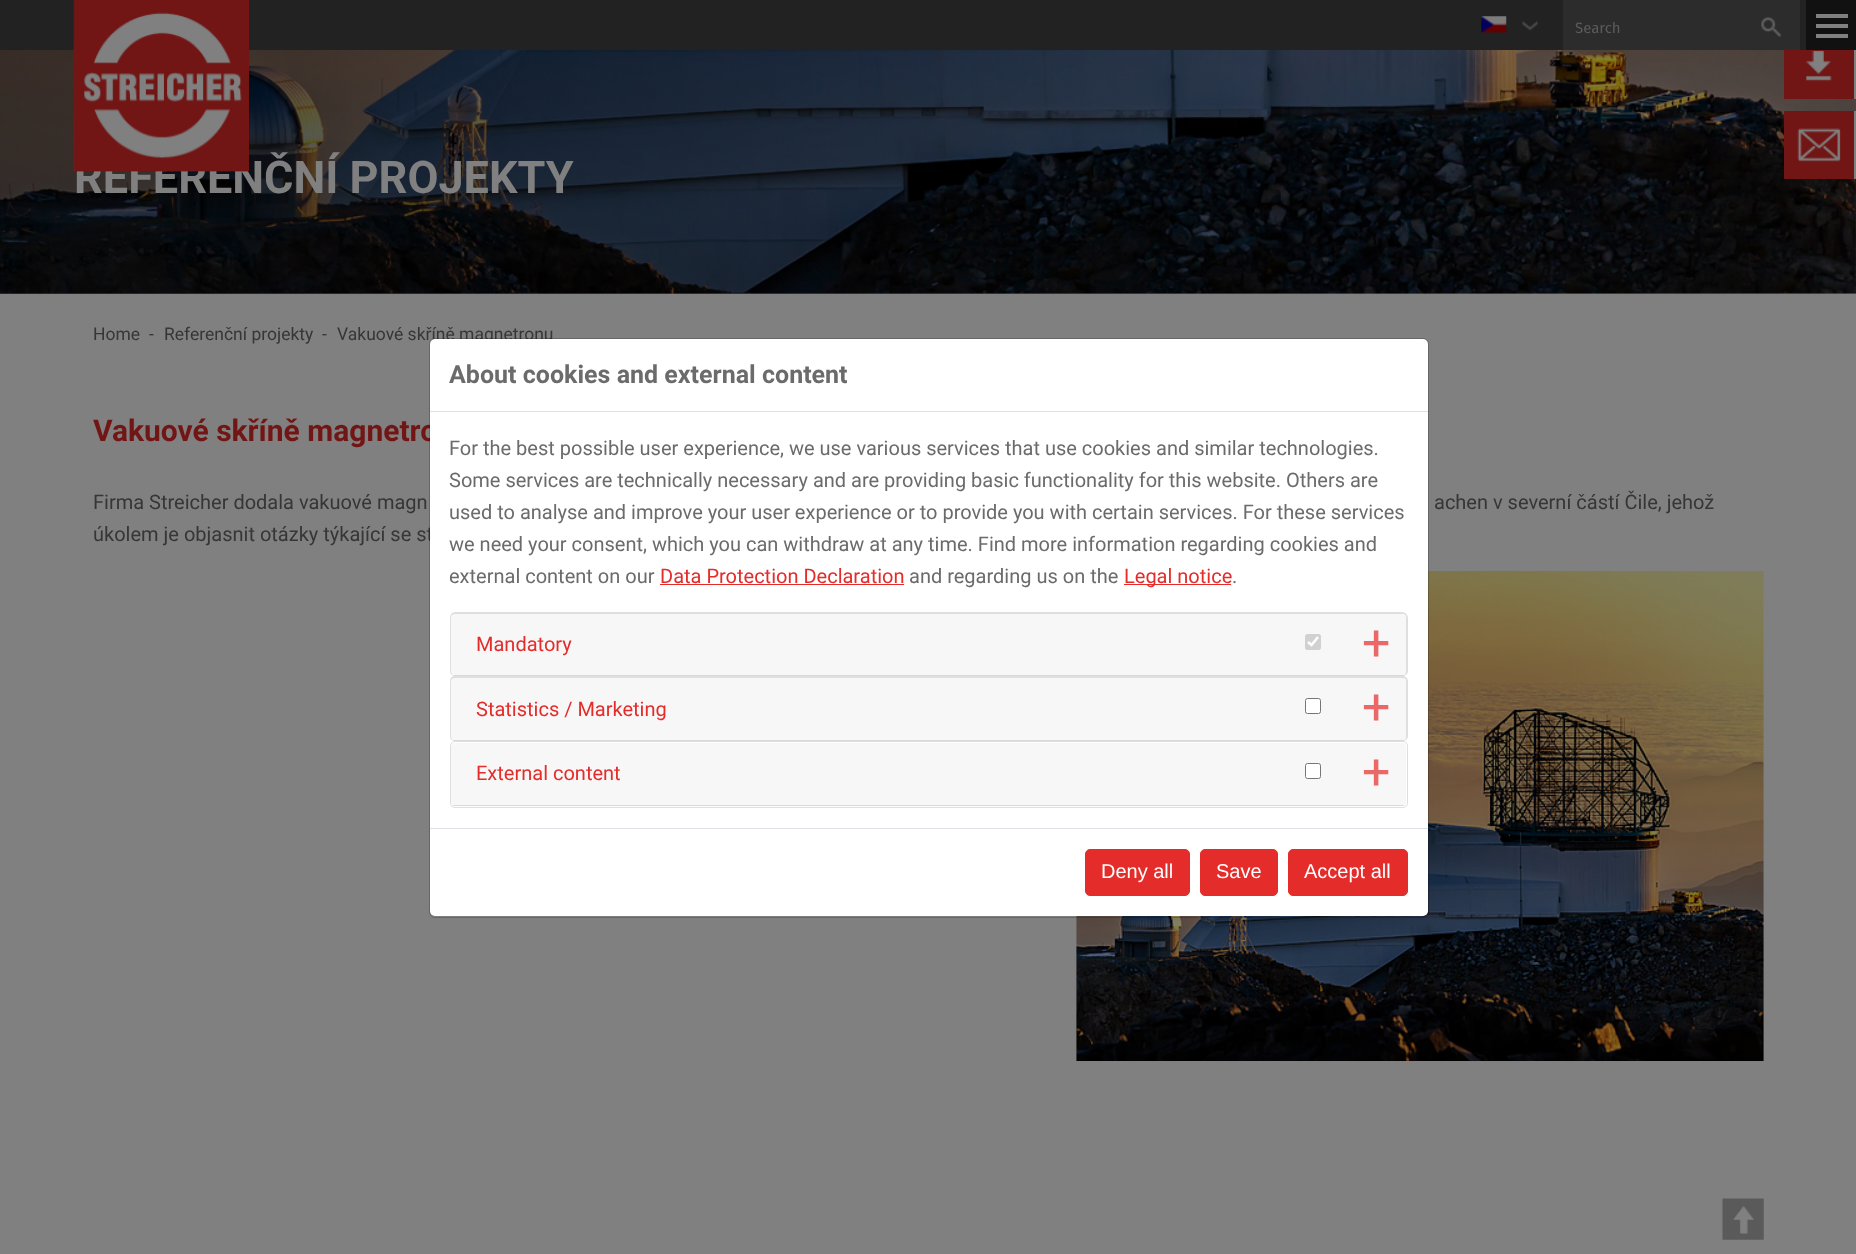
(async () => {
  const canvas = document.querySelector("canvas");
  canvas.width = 1856;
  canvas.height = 1254;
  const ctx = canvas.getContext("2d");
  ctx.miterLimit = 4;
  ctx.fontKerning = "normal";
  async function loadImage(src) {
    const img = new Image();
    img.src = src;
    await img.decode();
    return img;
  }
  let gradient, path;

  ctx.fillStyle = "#808080";
  ctx.fillRect(0, 0, 1856, 1254);
  ctx.fillStyle = "#222222";
  ctx.fillRect(0, 0, 1806, 50);
  ctx.drawImage(await loadImage("img/2.png"), 1481, 16, 26, 18);
  ctx.drawImage(await loadImage("img/3.png"), 1522, 21, 17, 10);
  ctx.fillStyle = "#2c2c2c";
  ctx.fillRect(1563, 0, 237, 50);
  ctx.drawImage(await loadImage("img/4.png"), 1761, 17, 21, 21);
  for (const [x, y, w, h, color] of [
    [1806, 0, 50, 50, "#111111"],
    [1816, 24, 32, 4, "#808080"],
    [1816, 14, 32, 4, "#808080"],
    [1816, 34, 32, 4, "#808080"],
  ]) {
    ctx.fillStyle = color;
    ctx.fillRect(x, y, w, h);
  }
  ctx.drawImage(await loadImage("img/5.png"), 0, 50, 1856, 244);
  gradient = ctx.createLinearGradient(765, 499, 1091, -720);
  gradient.addColorStop(0, "rgba(0, 0, 0, 0.5)");
  gradient.addColorStop(0.5, "rgba(0, 0, 0, 0)");
  ctx.fillStyle = gradient;
  ctx.fillRect(0, 50, 1856, 244);
  ctx.fillStyle = "#721615";
  ctx.fillRect(1784, 50, 70, 49);
  ctx.drawImage(await loadImage("img/6.png"), 1806, 50, 26, 32);
  ctx.fillStyle = "#808080";
  ctx.fillRect(1854, 50, 2, 49);
  ctx.fillStyle = "#721615";
  ctx.fillRect(1784, 111, 70, 68);
  ctx.drawImage(await loadImage("img/7.png"), 1797, 128, 44, 34);
  ctx.fillStyle = "#808080";
  ctx.fillRect(1854, 111, 2, 68);
  ctx.drawImage(await loadImage("img/8.png"), 1076, 571, 688, 490);
  ctx.drawImage(await loadImage("img/9.png"), 1722, 1198, 42, 42);
  ctx.font = "15px Fira Sans";
  ctx.fillStyle = "#5b5b5b";
  ctx.fillText("Search", 1575, 33);
  ctx.font = "bold 45px Roboto";
  ctx.fillStyle = "#808080";
  ctx.fillText("REFERENČNÍ PROJEKTY", 74, 193);
  ctx.fillStyle = "#721615";
  ctx.fillRect(74, 0, 175, 171);
  ctx.drawImage(await loadImage("img/1.png"), 73, 0, 176, 172);
  ctx.font = "17.5px Roboto";
  ctx.fillStyle = "#363636";
  for (const [text, x, y] of [
    ["Home", 93, 340],
    ["-", 149, 340],
    ["Referenční projekty", 164, 340],
    ["-", 322, 340],
    ["Vakuové skříně magnetronu", 337, 340],
  ]) {
    ctx.fillText(text, x, y);
  }
  ctx.font = "bold 30px Roboto";
  ctx.fillStyle = "#721615";
  ctx.fillText("Vakuové skříně magnetro", 93, 441);
  ctx.font = "20px Roboto";
  ctx.fillStyle = "#363636";
  for (const [text, x, y] of [
    ["Firma Streicher dodala vakuové magn", 93, 509],
    ["achen v severní částí Čile, jehož", 1434, 509],
    ["úkolem je objasnit otázky týkající se st", 93, 541],
  ]) {
    ctx.fillText(text, x, y);
  }
  ctx.fillStyle = "#ffffff";
  ctx.beginPath();
  ctx.roundRect(430, 339, 998, 577, 5);
  ctx.fill();
  ctx.beginPath();
  ctx.roundRect(429.5, 338.5, 999, 579, 5.5);
  ctx.strokeStyle = "rgba(0, 0, 0, 0.2)";
  ctx.stroke();
  ctx.beginPath();
  ctx.roundRect(450.5, 741.5, 957, 66, 4.5);
  ctx.strokeStyle = "#dfdfdf";
  ctx.stroke();
  ctx.fillStyle = "#f7f7f7";
  ctx.beginPath();
  ctx.roundRect(451, 743, 955, 63, 4);
  ctx.fill();
  ctx.font = "50px Roboto";
  ctx.fillStyle = "#ea6968";
  ctx.fillText("+", 1362, 789);
  ctx.font = "20px Roboto";
  ctx.fillStyle = "#e42c2a";
  ctx.fillText("External content", 476, 780);
  ctx.fillStyle = "#ffffff";
  ctx.beginPath();
  ctx.roundRect(1305.5, 763.5, 15, 15, 2);
  ctx.fill();
  ctx.strokeStyle = "#767676";
  ctx.stroke();
  ctx.save();
  ctx.beginPath();
  ctx.roundRect(451, 743, 955, 63, 4);
  ctx.clip();
  ctx.fillStyle = "rgba(0, 0, 0, 0.12)";
  ctx.fillRect(451, 805, 955, 1);
  ctx.restore();
  ctx.fillStyle = "#dfdfdf";
  path = new Path2D("M455 676H1402C1405 676 1408 678 1408 681V736C1408 739 1405 741 1402 741H455C452 741 450 739 450 736V681C450 678 452 676 455 676ZM455 678H1402C1405 678 1406 679 1406 681V736C1406 739 1405 741 1402 741H455C453 741 451 739 451 736V681C451 679 453 678 455 678Z");
  ctx.fill(path, "evenodd");
  ctx.fillStyle = "rgba(0, 0, 0, 0.03)";
  path = new Path2D("M455 678H1402C1404 678 1406 680 1406 682V738C1406 739 1405 741 1404 741H454C452 740 451 738 451 736V680C452 679 453 678 455 678Z");
  ctx.fill(path);
  ctx.font = "50px Roboto";
  ctx.fillStyle = "#ea6968";
  ctx.fillText("+", 1362, 724);
  ctx.font = "20px Roboto";
  ctx.fillStyle = "#e42c2a";
  ctx.fillText("Statistics / Marketing", 476, 716);
  ctx.fillStyle = "#ffffff";
  ctx.beginPath();
  ctx.roundRect(1305.5, 698.5, 15, 15, 2);
  ctx.fill();
  ctx.stroke();
  ctx.fillStyle = "#d8d8d8";
  path = new Path2D("M454 741L453 740H1405L1404 741Z");
  ctx.fill(path);
  ctx.fillStyle = "#dfdfdf";
  path = new Path2D("M455 612H1402C1405 612 1408 615 1408 618V671C1408 674 1405 676 1402 676H455C452 676 450 674 450 671V618C450 615 452 612 455 612ZM455 614H1402C1405 614 1406 615 1406 618V671C1406 674 1405 676 1402 676H455C453 676 451 674 451 671V618C451 615 453 614 455 614Z");
  ctx.fill(path, "evenodd");
  ctx.fillStyle = "rgba(0, 0, 0, 0.03)";
  path = new Path2D("M455 614H1402C1404 614 1406 616 1406 618V673C1406 674 1405 676 1404 676H454C452 675 451 673 451 671V618L452 616C452 615 454 614 455 614Z");
  ctx.fill(path);
  ctx.font = "50px Roboto";
  ctx.fillStyle = "#ea6968";
  ctx.fillText("+", 1362, 660);
  ctx.font = "20px Roboto";
  ctx.fillStyle = "#e42c2a";
  ctx.fillText("Mandatory", 476, 651);
  ctx.fillStyle = "#d1d1d1";
  ctx.beginPath();
  ctx.roundRect(1305, 634, 16, 16, 2.5);
  ctx.fill();
  path = new Path2D("M1308 642L1311.5 645L1318 637");
  ctx.strokeStyle = "#ffffff";
  ctx.lineWidth = 2.6;
  ctx.stroke(path);
  ctx.fillStyle = "#d8d8d8";
  path = new Path2D("M454 676L453 675H1405L1404 676Z");
  ctx.fill(path);
  ctx.fillStyle = "#6b6b6b";
  ctx.fillText(".", 1232, 583);
  ctx.fillStyle = "#e42c2a";
  ctx.fillRect(1124, 584, 107, 1);
  ctx.fillText("Legal notice", 1124, 583);
  ctx.fillStyle = "#6b6b6b";
  ctx.fillText("and regarding us on the", 909, 583);
  ctx.fillStyle = "#e42c2a";
  ctx.fillText("Data Protection Declaration", 660, 583);
  ctx.fillRect(660, 584, 244, 1);
  ctx.fillStyle = "#6b6b6b";
  for (const [text, x, y] of [
    ["external content on our", 449, 583],
    ["we need your consent, which you can withdraw at any time. Find more information regarding cookies and", 449, 551],
    ["used to analyse and improve your user experience or to provide you with certain services. For these services", 449, 519],
    ["Some services are technically necessary and are providing basic functionality for this website. Others are", 449, 487],
    ["For the best possible user experience, we use various services that use cookies and similar technologies.", 449, 455],
  ]) {
    ctx.fillText(text, x, y);
  }
  ctx.fillStyle = "#e42c2a";
  ctx.beginPath();
  ctx.roundRect(1288.5, 849.5, 119, 46, 4.5);
  ctx.fill();
  ctx.strokeStyle = "#e42c2a";
  ctx.lineWidth = 1;
  ctx.stroke();
  ctx.font = "20px Liberation Sans";
  ctx.fillStyle = "#ffffff";
  ctx.fillText("Accept all", 1304, 878);
  ctx.fillStyle = "#e42c2a";
  ctx.beginPath();
  ctx.roundRect(1200.5, 849.5, 77, 46, 4.5);
  ctx.fill();
  ctx.stroke();
  ctx.fillStyle = "#ffffff";
  ctx.fillText("Save", 1216, 878);
  ctx.fillStyle = "#e42c2a";
  ctx.beginPath();
  ctx.roundRect(1085.5, 849.5, 104, 46, 4.5);
  ctx.fill();
  ctx.stroke();
  ctx.fillStyle = "#ffffff";
  ctx.fillText("Deny all", 1101, 878);
  ctx.fillStyle = "#dee2e6";
  ctx.fillRect(430, 828, 998, 1);
  ctx.font = "bold 25px 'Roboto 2'";
  ctx.fillStyle = "#6b6b6b";
  ctx.fillText("About cookies and external content", 449, 383);
  ctx.fillStyle = "#dee2e6";
  ctx.fillRect(430, 411, 998, 1);
})();
